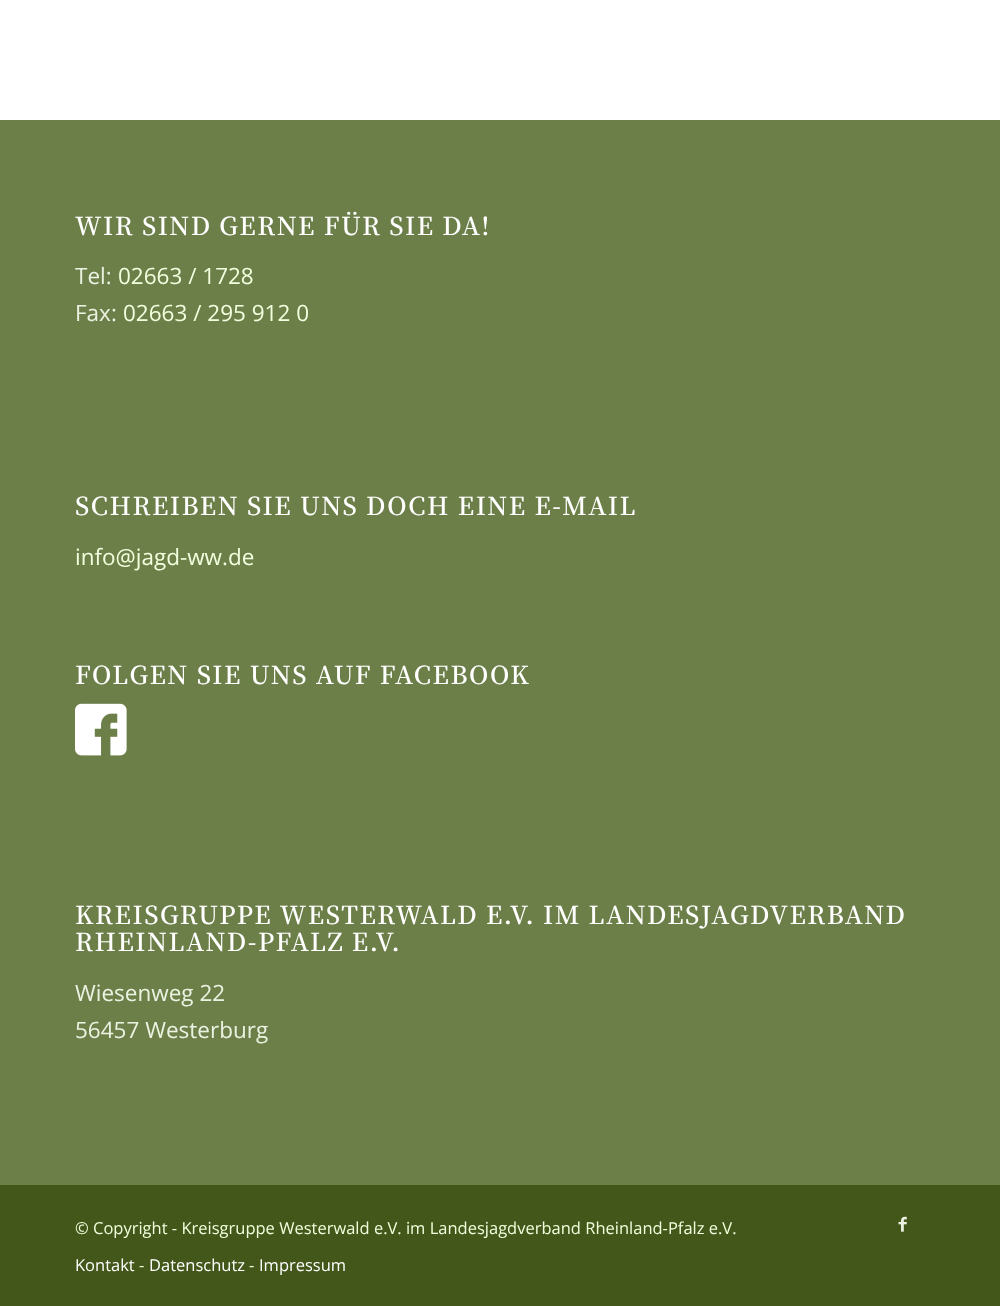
(async () => {
  const canvas = document.querySelector("canvas");
  canvas.width = 1000;
  canvas.height = 1306;
  const ctx = canvas.getContext("2d");
  ctx.miterLimit = 4;
  ctx.fontKerning = "normal";
  async function loadImage(src) {
    const img = new Image();
    img.src = src;
    await img.decode();
    return img;
  }

  ctx.fillStyle = "#ffffff";
  ctx.fillRect(0, 0, 1000, 1306);
  ctx.fillStyle = "#6c7f48";
  ctx.fillRect(0, 120, 1000, 1065);
  ctx.drawImage(await loadImage("img/1.png"), 75, 703, 52, 53);
  ctx.fillStyle = "#425719";
  ctx.fillRect(0, 1185, 1000, 121);
  ctx.drawImage(await loadImage("img/2.png"), 898, 1216, 9, 16);
  ctx.letterSpacing = "1.5px";
  ctx.font = "600 24.75px Noto Serif TC";
  ctx.fillStyle = "#ffffff";
  ctx.fillText("WIR SIND GERNE FÜR SIE DA!", 75, 235);
  ctx.letterSpacing = "0px";
  ctx.font = "22.5px Open Sans";
  ctx.fillStyle = "#ecf2e1";
  ctx.fillText("Tel:", 75, 284);
  ctx.fillStyle = "#f3ffde";
  ctx.fillText("02663 / 1728", 118, 284);
  ctx.fillStyle = "#ecf2e1";
  ctx.fillText("Fax:", 75, 321);
  ctx.fillStyle = "#f3ffde";
  ctx.fillText("02663 / 295 912 0", 123, 321);
  ctx.letterSpacing = "1.5px";
  ctx.font = "600 24.75px Noto Serif TC";
  ctx.fillStyle = "#ffffff";
  ctx.fillText("SCHREIBEN SIE UNS DOCH EINE E-MAIL", 75, 515);
  ctx.letterSpacing = "0px";
  ctx.font = "22.5px Open Sans";
  ctx.fillStyle = "#f3ffde";
  ctx.fillText("info@jagd-ww.de", 75, 565);
  ctx.letterSpacing = "1.5px";
  ctx.font = "600 24.75px Noto Serif TC";
  ctx.fillStyle = "#ffffff";
  for (const [text, x, y] of [
    ["FOLGEN SIE UNS AUF FACEBOOK", 75, 684],
    ["KREISGRUPPE WESTERWALD E.V. IM LANDESJAGDVERBAND", 75, 924],
    ["RHEINLAND-PFALZ E.V.", 75, 951],
  ]) {
    ctx.fillText(text, x, y);
  }
  ctx.letterSpacing = "0px";
  ctx.font = "22.5px Open Sans";
  ctx.fillStyle = "#ecf2e1";
  ctx.fillText("Wiesenweg 22", 75, 1001);
  ctx.fillText("56457 Westerburg", 75, 1038);
  ctx.font = "16.5px Open Sans";
  ctx.fillStyle = "#f3ffde";
  ctx.fillText("© Copyright - Kreisgruppe Westerwald e.V. im Landesjagdverband Rheinland-Pfalz e.V.", 75, 1234);
  ctx.fillStyle = "#ffffff";
  ctx.fillText("Kontakt", 75, 1271);
  ctx.fillStyle = "#f3ffde";
  ctx.fillText("-", 139, 1271);
  ctx.fillStyle = "#ffffff";
  ctx.fillText("Datenschutz", 149, 1271);
  ctx.fillStyle = "#f3ffde";
  ctx.fillText("-", 249, 1271);
  ctx.fillStyle = "#ffffff";
  ctx.fillText("Impressum", 259, 1271);
})();
